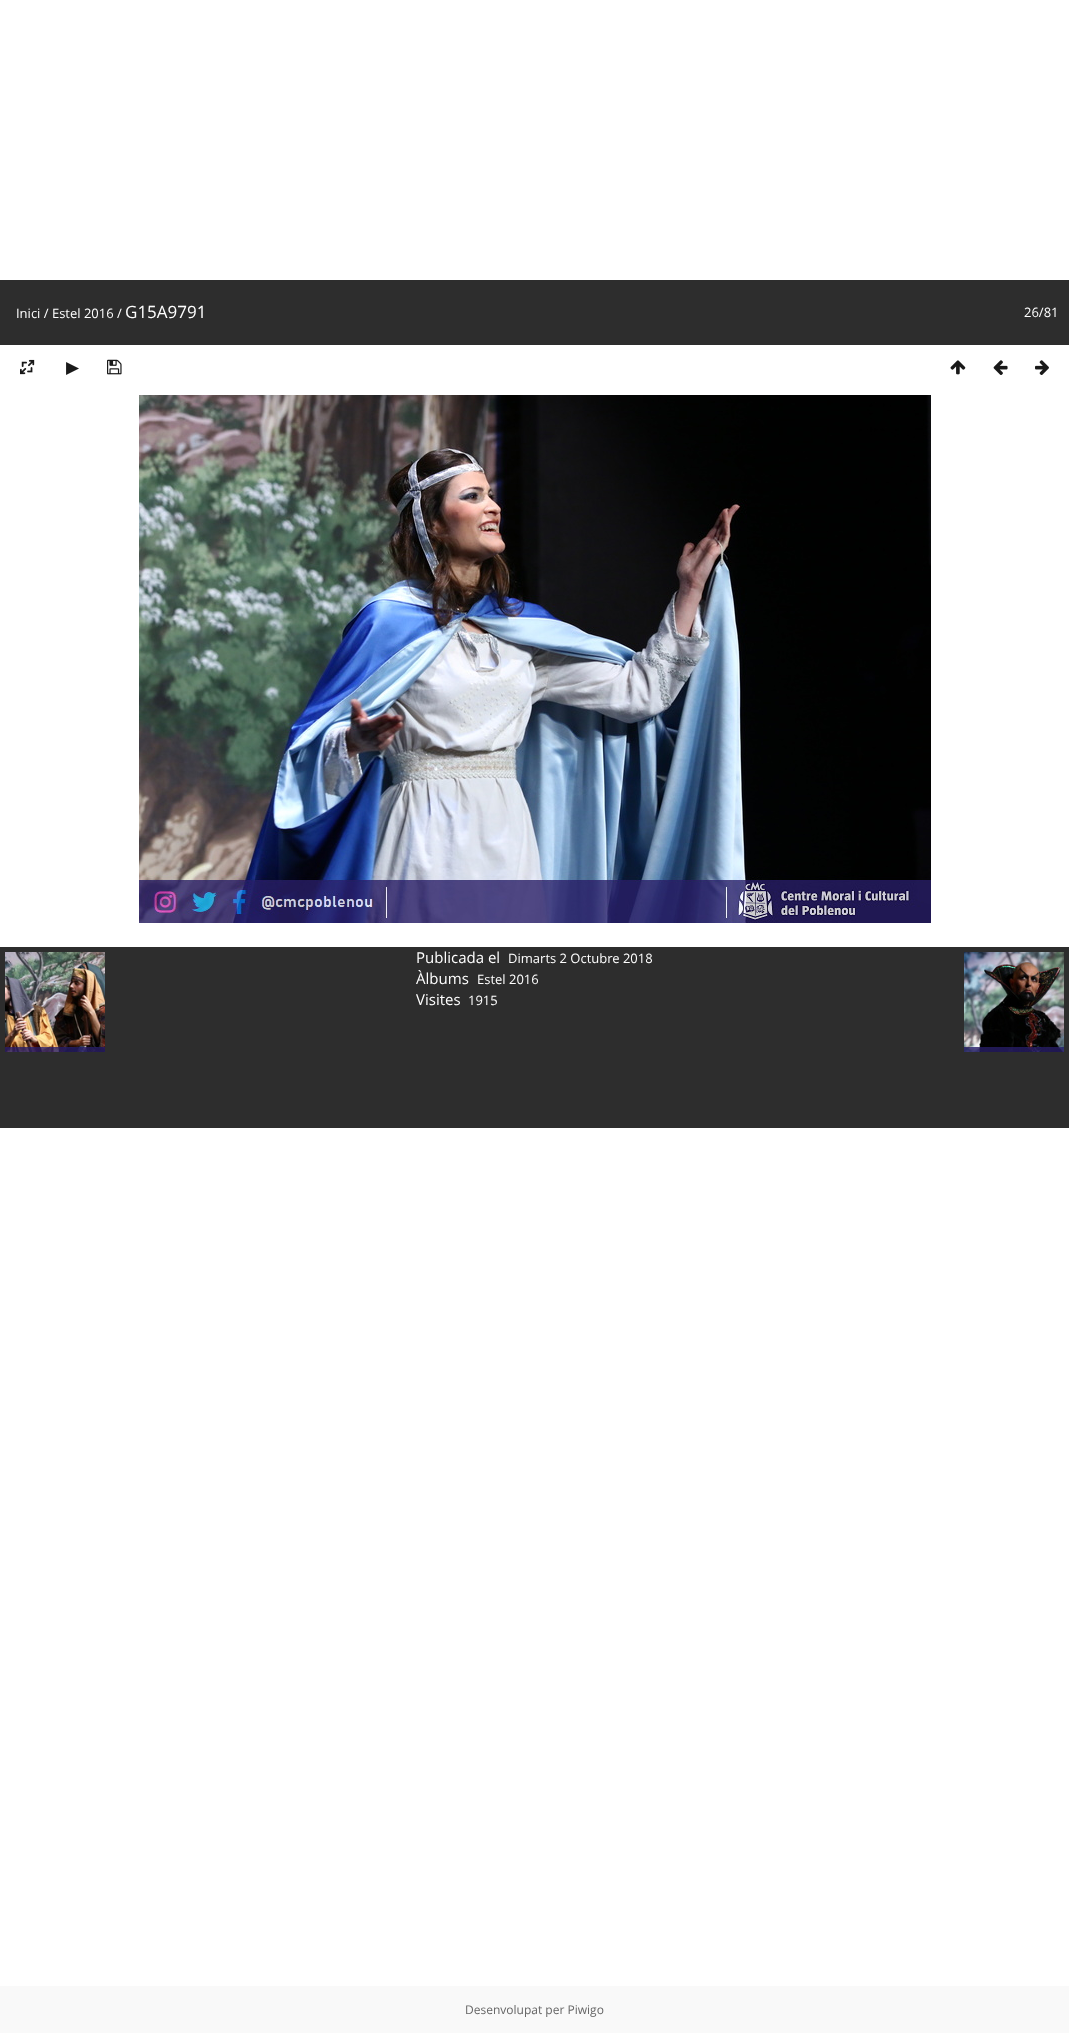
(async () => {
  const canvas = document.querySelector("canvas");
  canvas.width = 1069;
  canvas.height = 2033;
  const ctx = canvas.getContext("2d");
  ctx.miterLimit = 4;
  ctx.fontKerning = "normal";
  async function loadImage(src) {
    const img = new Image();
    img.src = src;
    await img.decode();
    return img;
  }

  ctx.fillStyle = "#ffffff";
  ctx.fillRect(0, 0, 1069, 2033);
  ctx.fillStyle = "#2d2d2d";
  ctx.fillRect(0, 280, 1069, 65);
  ctx.drawImage(await loadImage("img/1.png"), 20, 359, 15, 16);
  ctx.drawImage(await loadImage("img/2.png"), 107, 359, 15, 16);
  ctx.drawImage(await loadImage("img/3.png"), 950, 360, 16, 15);
  ctx.drawImage(await loadImage("img/4.png"), 993, 360, 15, 15);
  ctx.drawImage(await loadImage("img/5.png"), 1035, 360, 14, 15);
  ctx.drawImage(await loadImage("img/6.png"), 139, 395, 792, 528);
  ctx.fillRect(0, 947, 1069, 181);
  ctx.drawImage(await loadImage("img/7.png"), 5, 952, 100, 100);
  ctx.drawImage(await loadImage("img/8.png"), 964, 952, 100, 100);
  ctx.fillStyle = "#f9f9f9";
  ctx.fillRect(0, 1986, 1069, 47);
  ctx.font = "13px Open Sans";
  ctx.fillStyle = "#ffffff";
  ctx.fillText("Inici / Estel 2016 /", 16, 318);
  ctx.font = "17px Open Sans";
  ctx.fillText("G15A9791", 125, 318);
  ctx.font = "13px Open Sans";
  ctx.fillText("26/81", 1024, 317);
  ctx.font = "17px DejaVu Sans";
  ctx.fillStyle = "#1a1a1a";
  ctx.fillText("▶", 66, 373);
  ctx.font = "15px Open Sans";
  ctx.fillStyle = "#ffffff";
  ctx.fillText("Publicada el", 416, 963);
  ctx.font = "13px Open Sans";
  ctx.fillText("Dimarts 2 Octubre 2018", 508, 963);
  ctx.font = "15px Open Sans";
  ctx.fillText("Àlbums", 416, 984);
  ctx.font = "13px Open Sans";
  ctx.fillText("Estel 2016", 477, 984);
  ctx.font = "15px Open Sans";
  ctx.fillText("Visites", 416, 1005);
  ctx.font = "13px Open Sans";
  ctx.fillText("1915", 468, 1005);
  ctx.font = "12px Open Sans";
  ctx.fillStyle = "#666666";
  ctx.fillText("Desenvolupat per Piwigo", 465, 2014);
})();
